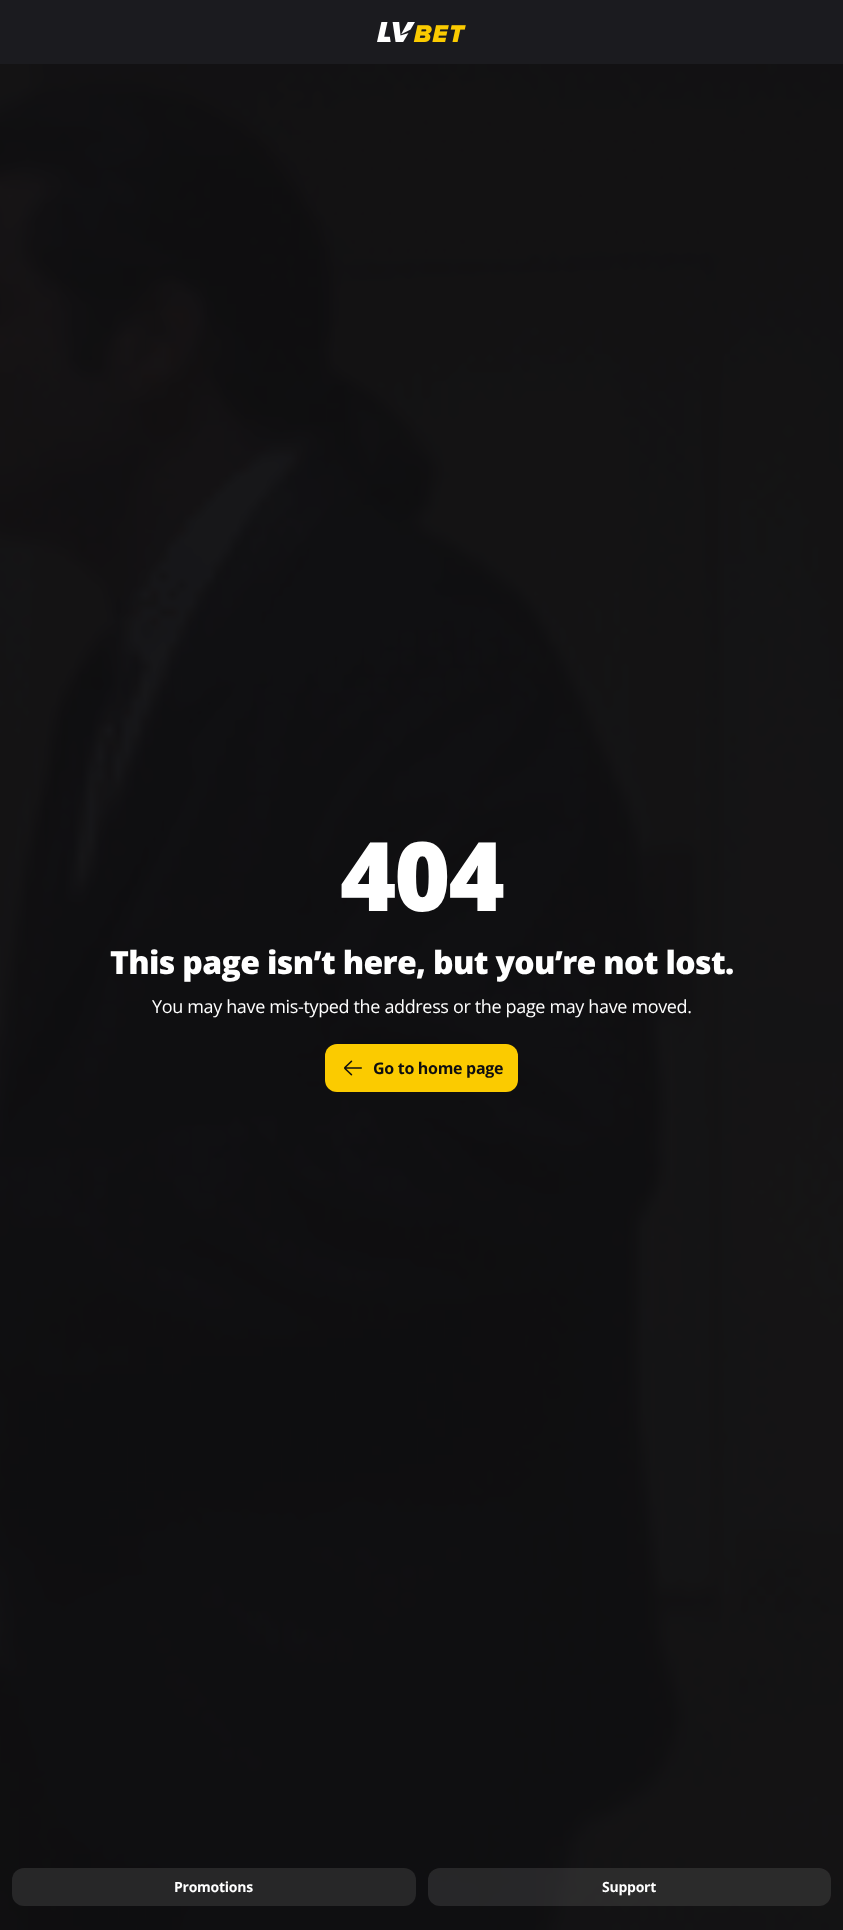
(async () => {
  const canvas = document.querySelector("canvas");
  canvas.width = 843;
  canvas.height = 1930;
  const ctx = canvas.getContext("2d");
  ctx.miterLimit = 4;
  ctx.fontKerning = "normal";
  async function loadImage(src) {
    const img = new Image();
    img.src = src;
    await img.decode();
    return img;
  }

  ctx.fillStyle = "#ffffff";
  ctx.fillRect(0, 0, 843, 1930);
  ctx.fillStyle = "#1b1b1f";
  ctx.fillRect(0, 0, 843, 64);
  ctx.drawImage(await loadImage("img/1.png"), 377, 22, 89, 20);
  ctx.drawImage(await loadImage("img/2.png"), 0, 64, 843, 1866);
  ctx.fillStyle = "#fbcb00";
  ctx.beginPath();
  ctx.roundRect(325, 1044, 193, 48, 12);
  ctx.fill();
  ctx.drawImage(await loadImage("img/3.png"), 344, 1060, 18, 16);
  ctx.fillStyle = "#272728";
  ctx.beginPath();
  ctx.roundRect(12, 1868, 404, 38, 12);
  ctx.fill();
  ctx.fillStyle = "rgba(255, 255, 255, 0.1)";
  ctx.beginPath();
  ctx.roundRect(428, 1868, 403, 38, 12);
  ctx.fill();
  ctx.letterSpacing = "-2px";
  ctx.font = "800 96px Open Sans";
  ctx.fillStyle = "#ffffff";
  ctx.fillText("404", 340, 911);
  ctx.letterSpacing = "-0.65px";
  ctx.font = "800 32px Open Sans";
  ctx.fillText("This page isn’t here, but you’re not lost.", 110, 974);
  ctx.letterSpacing = "-0.35px";
  ctx.font = "18px Open Sans";
  ctx.fillText("You may have mis-typed the address or the page may have moved.", 152, 1013);
  ctx.letterSpacing = "-0.3px";
  ctx.font = "bold 16px Open Sans";
  ctx.fillStyle = "#0e0e10";
  ctx.fillText("Go to home page", 373, 1074);
  ctx.letterSpacing = "-0.25px";
  ctx.font = "bold 14px Open Sans";
  ctx.fillStyle = "#ffffff";
  ctx.fillText("Promotions", 174, 1892);
  ctx.fillText("Support", 602, 1892);
})();
